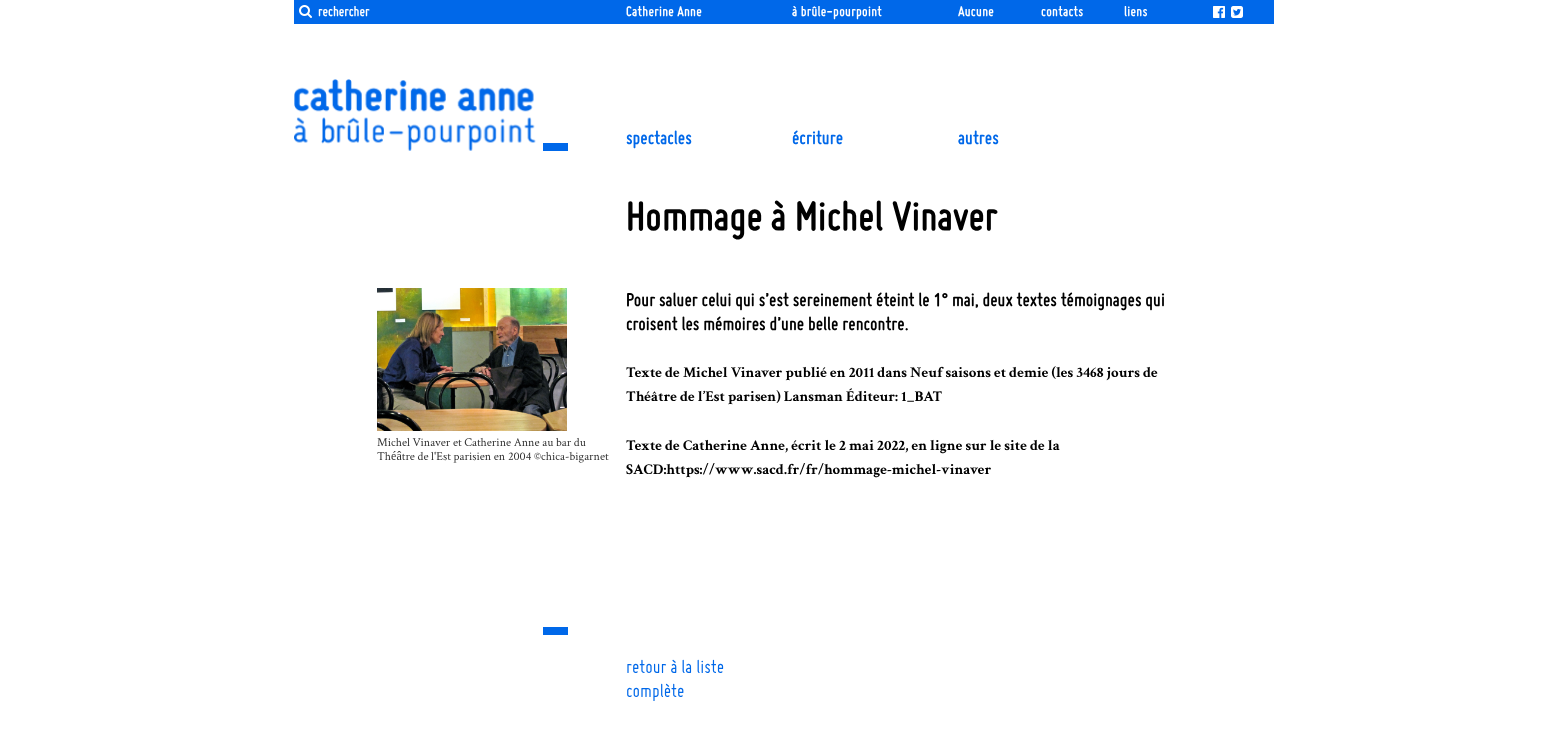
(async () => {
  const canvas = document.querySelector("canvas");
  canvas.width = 1567;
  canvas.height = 755;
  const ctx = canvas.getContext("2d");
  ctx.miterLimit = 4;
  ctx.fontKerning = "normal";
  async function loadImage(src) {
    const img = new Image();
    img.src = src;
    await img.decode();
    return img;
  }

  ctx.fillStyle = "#ffffff";
  ctx.fillRect(0, 0, 1567, 755);
  ctx.fillStyle = "#0068e9";
  ctx.fillRect(294, 0, 980, 24);
  ctx.drawImage(await loadImage("img/1.png"), 299, 5, 13, 13);
  ctx.drawImage(await loadImage("img/2.png"), 1213, 6, 12, 12);
  ctx.drawImage(await loadImage("img/3.png"), 1231, 6, 12, 12);
  ctx.drawImage(await loadImage("img/4.png"), 294, 79, 242, 72);
  ctx.fillRect(543, 143, 25, 8);
  ctx.drawImage(await loadImage("img/5.png"), 377, 288, 190, 143);
  ctx.fillRect(543, 627, 25, 8);
  ctx.font = "italic bold 15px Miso";
  ctx.fillStyle = "#ffffff";
  ctx.fillText("rechercher", 318, 16);
  ctx.letterSpacing = "0.25px";
  for (const [text, x, y] of [
    ["Catherine Anne", 626, 16],
    ["à brûle-pourpoint", 792, 16],
    ["Aucune", 958, 16],
    ["contacts", 1041, 16],
    ["liens", 1124, 16],
  ]) {
    ctx.fillText(text, x, y);
  }
  ctx.letterSpacing = "0px";
  ctx.font = "italic bold 20px Miso";
  ctx.fillStyle = "#0068e9";
  for (const [text, x, y] of [
    ["spectacles", 626, 144],
    ["écriture", 792, 144],
    ["autres", 958, 144],
  ]) {
    ctx.fillText(text, x, y);
  }
  ctx.font = "italic bold 44px Miso";
  ctx.fillStyle = "#000000";
  ctx.fillText("Hommage à Michel Vinaver", 626, 230);
  ctx.font = "12px Crimson Text";
  ctx.fillStyle = "#323232";
  ctx.fillText("Michel Vinaver et Catherine Anne au bar du", 377, 446);
  ctx.fillText("Théâtre de l'Est parisien en 2004 ©chica-bigarnet", 377, 460);
  ctx.font = "italic bold 20px Miso";
  ctx.fillStyle = "#000000";
  ctx.fillText("Pour saluer celui qui s’est sereinement éteint le 1° mai, deux textes témoignages qui", 626, 306);
  ctx.fillText("croisent les mémoires d’une belle rencontre.", 626, 330);
  ctx.font = "bold 14.95px Crimson Text";
  for (const [text, x, y] of [
    ["Texte de Michel Vinaver publié en 2011 dans Neuf saisons et demie (les 3468 jours de", 626, 377],
    ["Théâtre de l’Est parisen) Lansman Éditeur: 1_BAT", 626, 401],
    ["Texte de Catherine Anne, écrit le 2 mai 2022, en ligne sur le site de la", 626, 450],
    ["SACD:https://www.sacd.fr/fr/hommage-michel-vinaver", 626, 474],
  ]) {
    ctx.fillText(text, x, y);
  }
  ctx.font = "italic 20px Miso";
  ctx.fillStyle = "#0068e9";
  ctx.fillText("retour à la liste", 626, 673);
  ctx.fillText("complète", 626, 697);
})();
